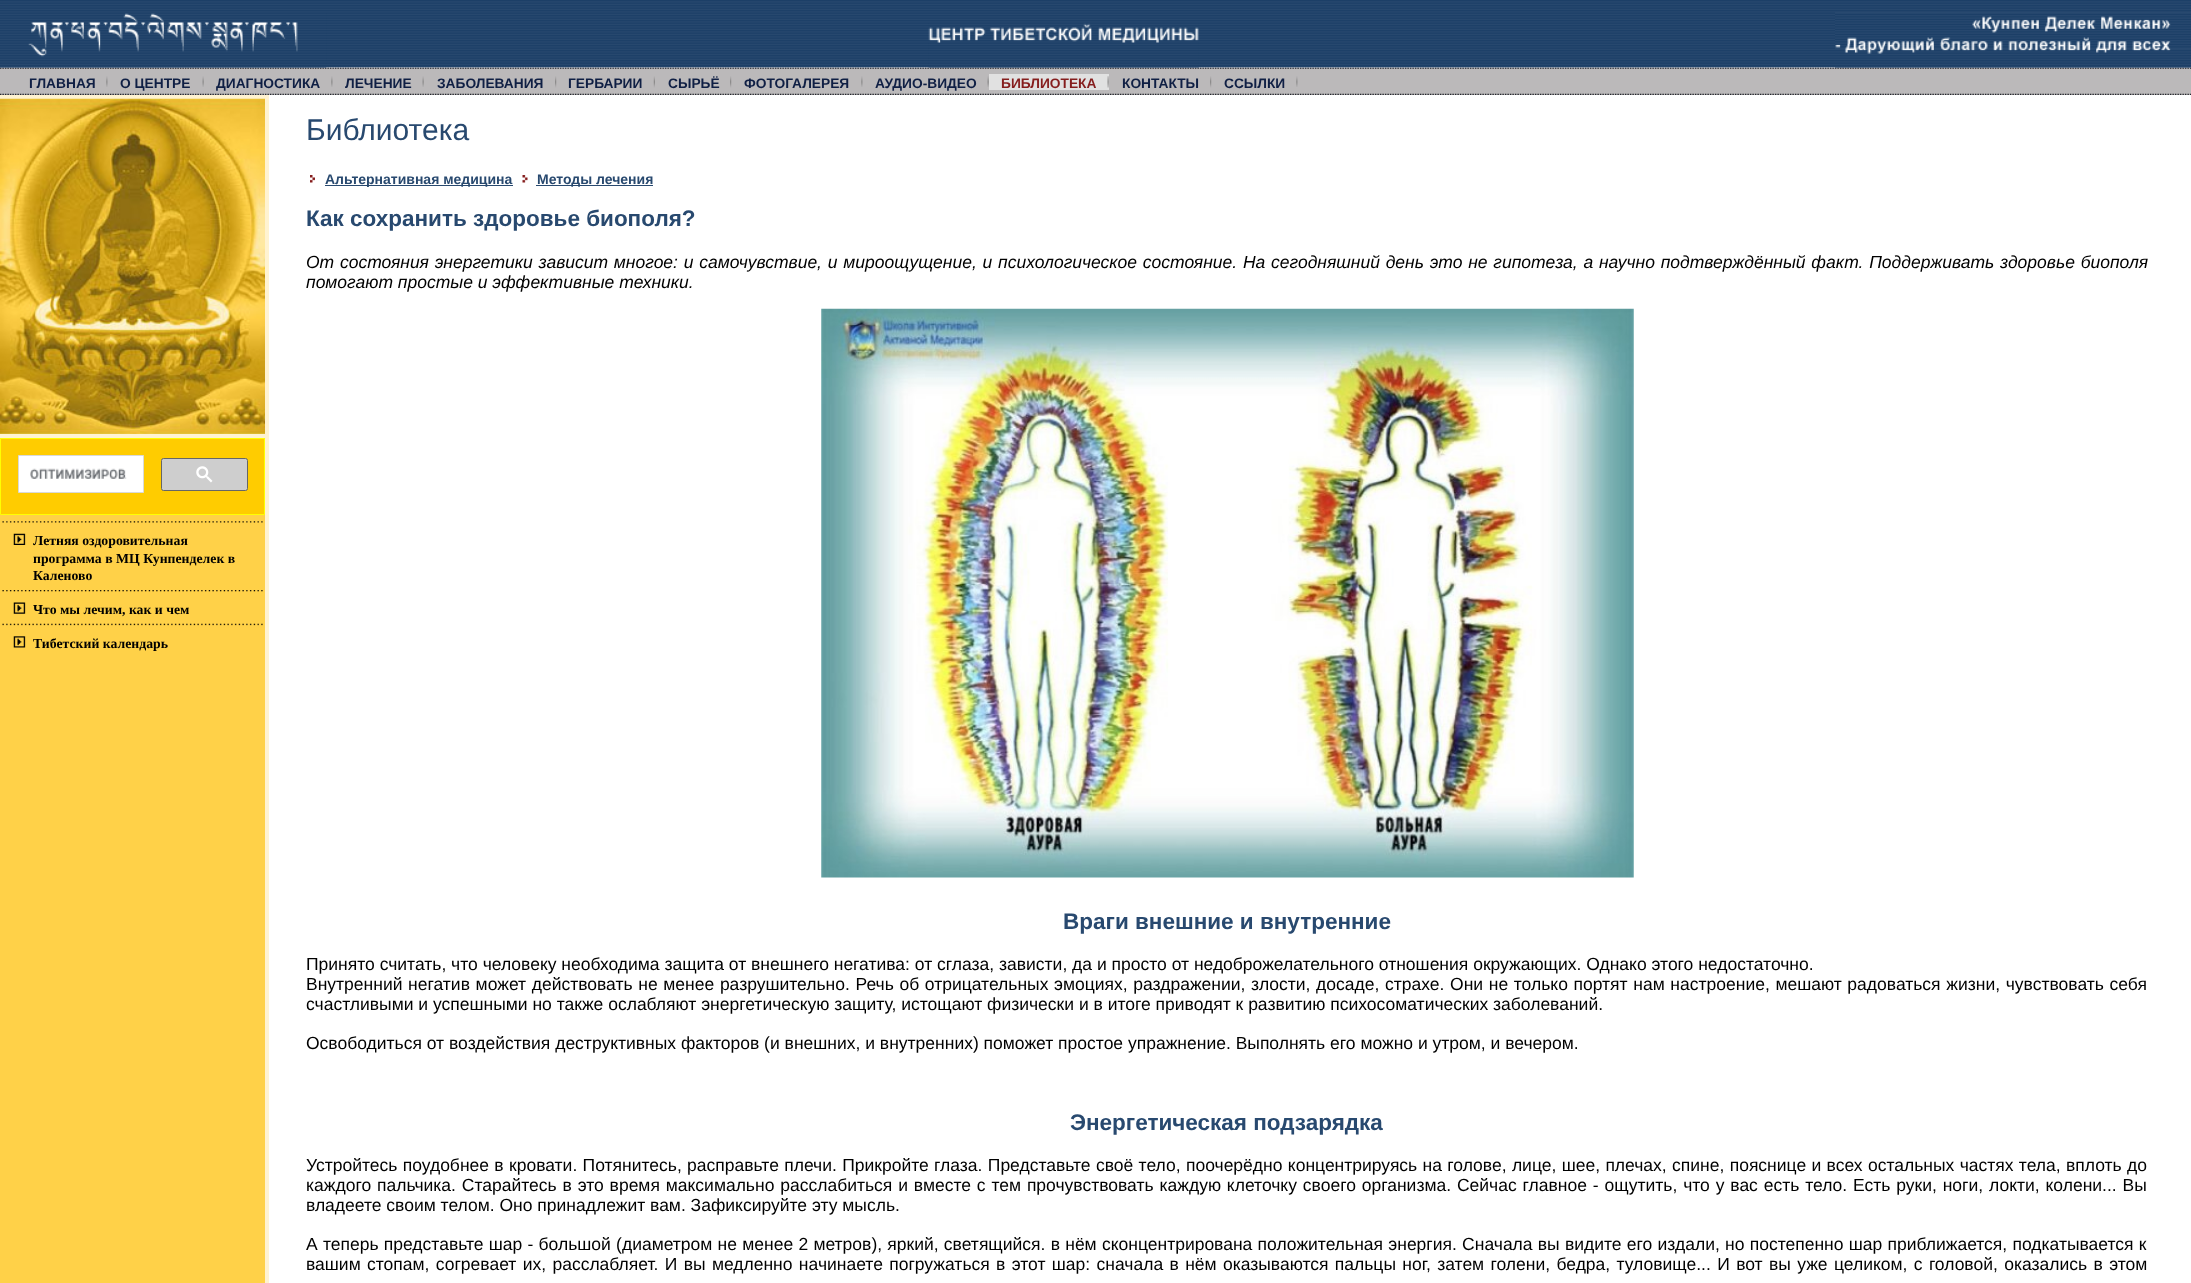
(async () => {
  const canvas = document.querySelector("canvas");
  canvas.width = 2191;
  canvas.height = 1283;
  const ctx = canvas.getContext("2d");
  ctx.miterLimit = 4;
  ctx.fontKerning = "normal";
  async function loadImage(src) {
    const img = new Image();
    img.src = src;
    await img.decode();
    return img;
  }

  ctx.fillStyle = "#ffffff";
  ctx.fillRect(0, 0, 2191, 1283);
  ctx.drawImage(await loadImage("img/1.png"), 0, 0, 2191, 68);
  ctx.fillStyle = "#bbb9ba";
  ctx.fillRect(0, 68, 2191, 27);
  ctx.drawImage(await loadImage("img/5.png"), 0, 67, 2191, 28);
  ctx.drawImage(await loadImage("img/2.png"), 0, 13, 327, 55);
  ctx.drawImage(await loadImage("img/3.png"), 928, 23, 271, 45);
  ctx.drawImage(await loadImage("img/4.png"), 1835, 12, 356, 56);
  ctx.drawImage(await loadImage("img/6.png"), 106, 76, 2, 11);
  ctx.drawImage(await loadImage("img/7.png"), 202, 76, 2, 11);
  ctx.drawImage(await loadImage("img/6.png"), 331, 76, 2, 11);
  ctx.drawImage(await loadImage("img/7.png"), 422, 76, 2, 11);
  ctx.drawImage(await loadImage("img/8.png"), 555, 76, 2, 12);
  ctx.drawImage(await loadImage("img/9.png"), 653, 76, 2, 12);
  ctx.drawImage(await loadImage("img/8.png"), 730, 76, 2, 12);
  ctx.drawImage(await loadImage("img/6.png"), 861, 76, 2, 11);
  ctx.drawImage(await loadImage("img/7.png"), 987, 76, 2, 11);
  ctx.fillStyle = "#e1e1e1";
  ctx.fillRect(989, 74, 120, 16);
  ctx.drawImage(await loadImage("img/10.png"), 1107, 76, 2, 12);
  ctx.drawImage(await loadImage("img/8.png"), 1210, 76, 2, 12);
  ctx.drawImage(await loadImage("img/6.png"), 1296, 76, 2, 11);
  for (const [x, y, w, h, color] of [
    [0, 433, 265, 850, "#ffd148"],
    [265, 95, 4, 1188, "#fff3d1"],
    [0, 95, 265, 4, "#fff3d1"],
  ]) {
    ctx.fillStyle = color;
    ctx.fillRect(x, y, w, h);
  }
  ctx.drawImage(await loadImage("img/11.png"), 0, 98, 265, 336);
  ctx.fillRect(0, 434, 265, 4);
  ctx.fillStyle = "#ffcc00";
  ctx.beginPath();
  ctx.rect(0.5, 438.5, 264, 76);
  ctx.fill();
  ctx.strokeStyle = "#ffff00";
  ctx.stroke();
  ctx.fillStyle = "#ffffff";
  ctx.beginPath();
  ctx.rect(18.5, 455.5, 125, 37);
  ctx.fill();
  ctx.strokeStyle = "#d9d9d9";
  ctx.stroke();
  ctx.drawImage(await loadImage("img/12.png"), 30, 468, 97, 11);
  ctx.fillStyle = "#cecece";
  ctx.beginPath();
  ctx.roundRect(161.5, 458.5, 86, 32, 2);
  ctx.fill();
  ctx.strokeStyle = "#666666";
  ctx.stroke();
  ctx.drawImage(await loadImage("img/13.png"), 196, 466, 17, 17);
  ctx.drawImage(await loadImage("img/14.png"), 2, 521, 261, 24);
  ctx.drawImage(await loadImage("img/15.png"), 2, 590, 261, 24);
  ctx.drawImage(await loadImage("img/16.png"), 2, 623, 261, 25);
  ctx.drawImage(await loadImage("img/17.png"), 310, 175, 5, 8);
  ctx.fillStyle = "#28496f";
  ctx.fillRect(325, 185, 188, 1);
  ctx.drawImage(await loadImage("img/18.png"), 522, 175, 6, 8);
  ctx.fillRect(536, 185, 117, 1);
  ctx.drawImage(await loadImage("img/19.png"), 821, 308, 813, 570);
  ctx.font = "bold 13.75px Liberation Sans";
  ctx.fillStyle = "#0f1f44";
  for (const [text, x, y] of [
    ["ГЛАВНАЯ", 29, 88],
    ["О ЦЕНТРЕ", 120, 88],
    ["ДИАГНОСТИКА", 216, 88],
    ["ЛЕЧЕНИЕ", 345, 88],
    ["ЗАБОЛЕВАНИЯ", 437, 88],
    ["ГЕРБАРИИ", 568, 88],
    ["СЫРЬЁ", 668, 88],
    ["ФОТОГАЛЕРЕЯ", 744, 88],
    ["АУДИО-ВИДЕО", 875, 88],
  ]) {
    ctx.fillText(text, x, y);
  }
  ctx.fillStyle = "#851d1d";
  ctx.fillText("БИБЛИОТЕКА", 1001, 88);
  ctx.fillStyle = "#0f1f44";
  ctx.fillText("КОНТАКТЫ", 1122, 88);
  ctx.fillText("CСЫЛКИ", 1224, 88);
  ctx.font = "bold 13.75px Liberation Serif";
  ctx.fillStyle = "#000000";
  for (const [text, x, y] of [
    ["Летняя оздоровительная", 33, 545],
    ["программа в МЦ Кунпенделек в", 33, 563],
    ["Каленово", 33, 580],
    ["Что мы лечим, как и чем", 33, 614],
    ["Тибетский календарь", 33, 648],
  ]) {
    ctx.fillText(text, x, y);
  }
  ctx.font = "30px Liberation Sans";
  ctx.fillStyle = "#28496f";
  ctx.fillText("Библиотека", 306, 140);
  ctx.font = "bold 14px Liberation Sans";
  ctx.fillText("Альтернативная медицина", 325, 184);
  ctx.fillText("Методы лечения", 537, 184);
  ctx.font = "bold 22.5px Liberation Sans";
  ctx.fillText("Как сохранить здоровье биополя?", 306, 226);
  ctx.wordSpacing = "0.9px";
  ctx.font = "italic 17.5px Liberation Sans";
  ctx.fillStyle = "#000000";
  ctx.fillText("От состояния энергетики зависит многое: и самочувствие, и мироощущение, и психологическое состояние. На сегодняшний день это не гипотеза, а научно подтверждённый факт. Поддерживать здоровье биополя", 306, 268);
  ctx.wordSpacing = "0px";
  ctx.fillText("помогают простые и эффективные техники.", 306, 288);
  ctx.font = "bold 22.5px Liberation Sans";
  ctx.fillStyle = "#28496f";
  ctx.fillText("Враги внешние и внутренние", 1063, 929);
  ctx.font = "17.5px Liberation Sans";
  ctx.fillStyle = "#000000";
  ctx.fillText("Принято считать, что человеку необходима защита от внешнего негатива: от сглаза, зависти, да и просто от недоброжелательного отношения окружающих. Однако этого недостаточно.", 306, 970);
  ctx.wordSpacing = "0.8px";
  ctx.fillText("Внутренний негатив может действовать не менее разрушительно. Речь об отрицательных эмоциях, раздражении, злости, досаде, страхе. Они не только портят нам настроение, мешают радоваться жизни, чувствовать себя", 306, 990);
  ctx.wordSpacing = "0px";
  ctx.fillText("счастливыми и успешными но также ослабляют энергетическую защиту, истощают физически и в итоге приводят к развитию психосоматических заболеваний.", 306, 1010);
  ctx.fillText("Освободиться от воздействия деструктивных факторов (и внешних, и внутренних) поможет простое упражнение. Выполнять его можно и утром, и вечером.", 306, 1049);
  ctx.font = "bold 22.5px Liberation Sans";
  ctx.fillStyle = "#28496f";
  ctx.fillText("Энергетическая подзарядка", 1070, 1130);
  ctx.wordSpacing = "0.5px";
  ctx.font = "17.5px Liberation Sans";
  ctx.fillStyle = "#000000";
  ctx.fillText("Устройтесь поудобнее в кровати. Потянитесь, расправьте плечи. Прикройте глаза. Представьте своё тело, поочерёдно концентрируясь на голове, лице, шее, плечах, спине, пояснице и всех остальных частях тела, вплоть до", 306, 1171);
  ctx.wordSpacing = "1px";
  ctx.fillText("каждого пальчика. Старайтесь в это время максимально расслабиться и вместе с тем прочувствовать каждую клеточку своего организма. Сейчас главное - ощутить, что у вас есть тело. Есть руки, ноги, локти, колени... Вы", 306, 1191);
  ctx.wordSpacing = "0px";
  ctx.fillText("владеете своим телом. Оно принадлежит вам. Зафиксируйте эту мысль.", 306, 1211);
  ctx.wordSpacing = "0.4px";
  ctx.fillText("А теперь представьте шар - большой (диаметром не менее 2 метров), яркий, светящийся. в нём сконцентрирована положительная энергия. Сначала вы видите его издали, но постепенно шар приближается, подкатывается к", 306, 1250);
  ctx.wordSpacing = "1.5px";
  ctx.fillText("вашим стопам, согревает их, расслабляет. И вы медленно начинаете погружаться в этот шар: сначала в нём оказываются пальцы ног, затем голени, бедра, туловище... И вот вы уже целиком, с головой, оказались в этом", 306, 1270);
})();
